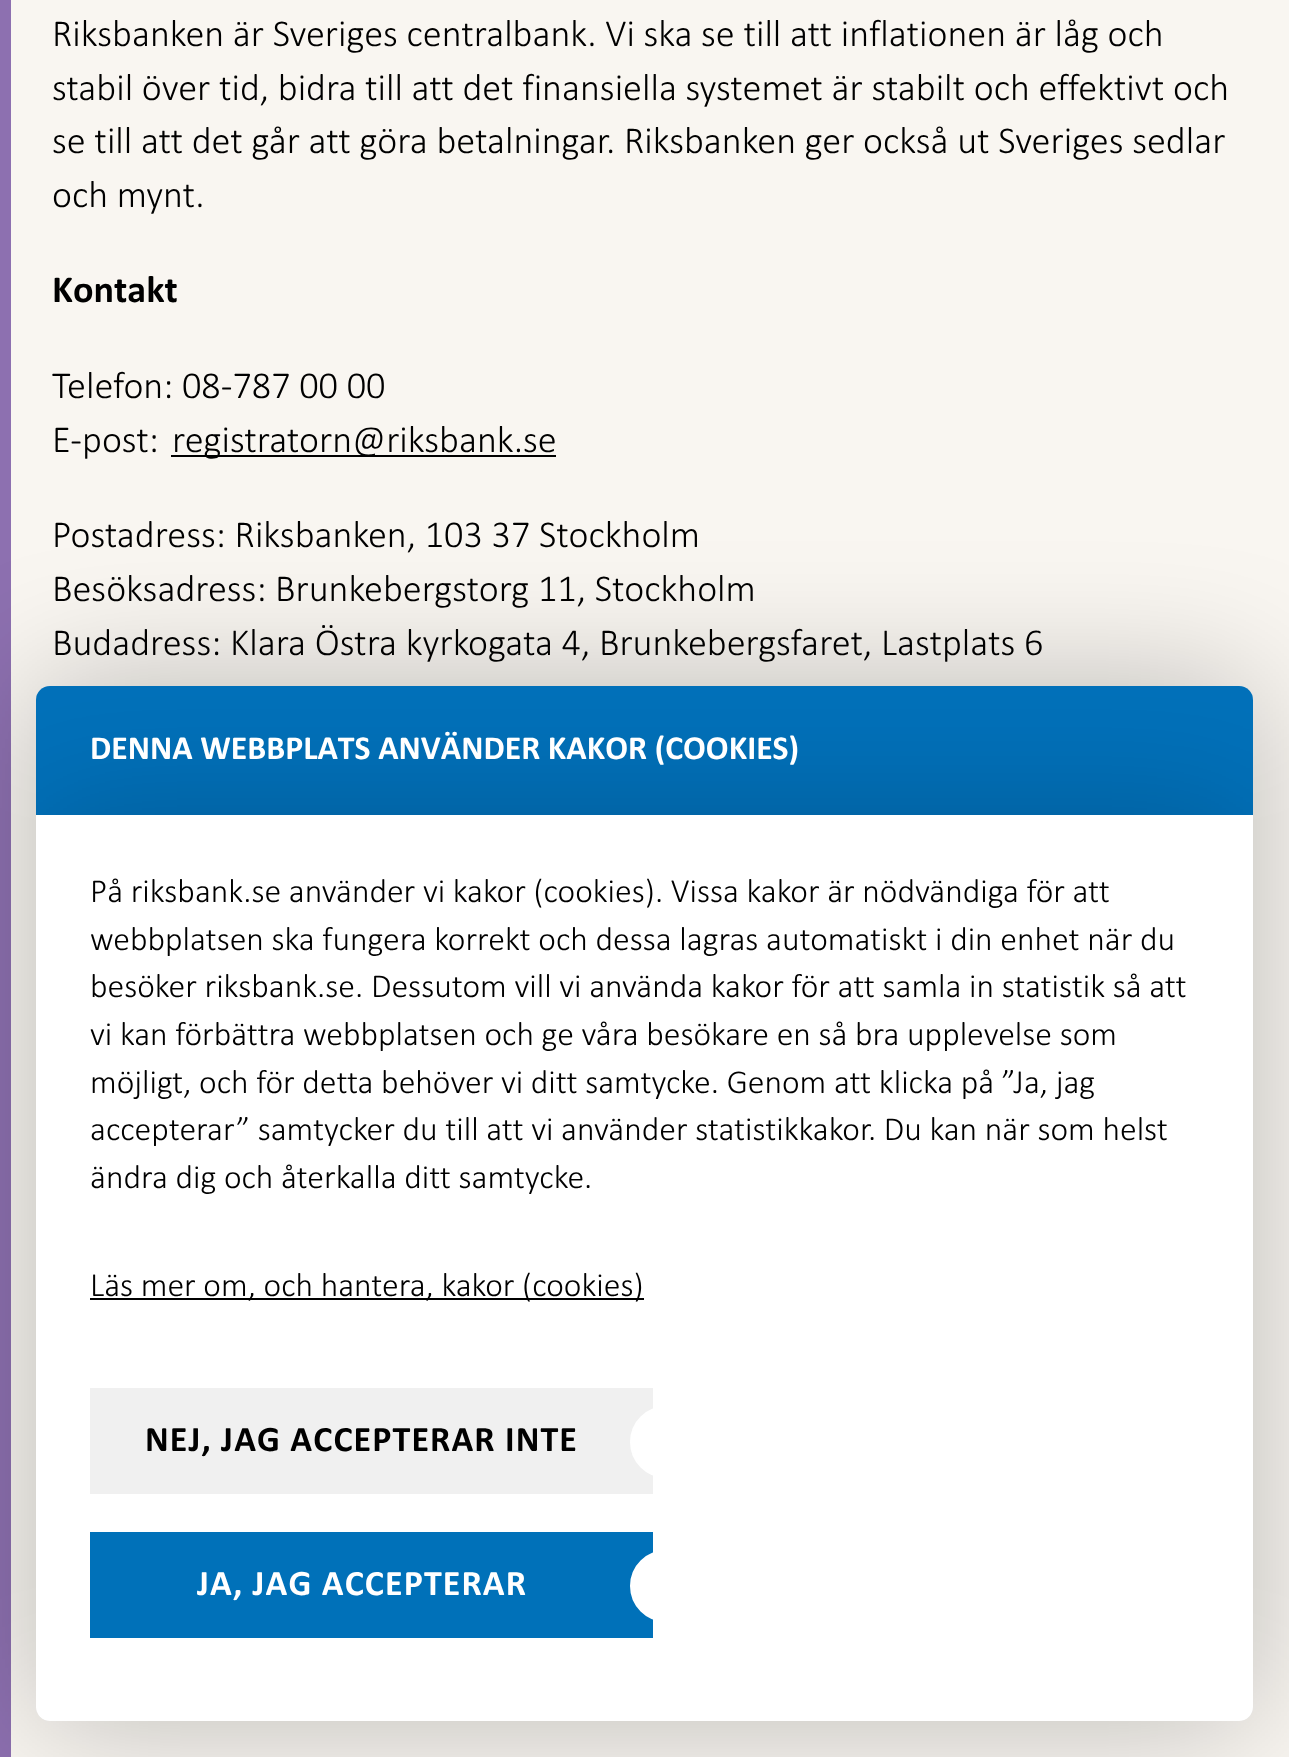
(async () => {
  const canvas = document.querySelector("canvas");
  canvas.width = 1289;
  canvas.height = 1757;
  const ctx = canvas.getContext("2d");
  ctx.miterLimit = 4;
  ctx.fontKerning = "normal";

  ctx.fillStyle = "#f9f6f1";
  ctx.fillRect(0, 0, 1289, 1757);
  ctx.fillStyle = "#8d70b0";
  ctx.fillRect(0, 0, 11, 1757);
  ctx.fillStyle = "#000000";
  ctx.fillRect(171, 455, 385, 2);
  ctx.fillStyle = "rgba(0, 0, 0, 0.25)";
  ctx.filter = "blur(67.5px)";
  ctx.beginPath();
  ctx.roundRect(36, 686, 1217, 1035, 14);
  ctx.fill();
  ctx.filter = "none";
  ctx.fillStyle = "#0271ba";
  ctx.beginPath();
  ctx.roundRect(36, 686, 1217, 129, [14, 14, 0, 0]);
  ctx.fill();
  ctx.save();
  ctx.beginPath();
  ctx.roundRect(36, 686, 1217, 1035, 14);
  ctx.clip();
  ctx.fillStyle = "rgba(0, 0, 0, 0.2)";
  ctx.filter = "blur(67.5px)";
  ctx.beginPath();
  ctx.rect(36, 815, 1217, 906);
  ctx.fill();
  ctx.filter = "none";
  ctx.restore();
  ctx.fillStyle = "#ffffff";
  ctx.beginPath();
  ctx.roundRect(36, 815, 1217, 906, [0, 0, 14, 14]);
  ctx.fill();
  ctx.fillStyle = "#000000";
  ctx.fillRect(90, 1298, 554, 2);
  ctx.fillStyle = "#f0f0f0";
  ctx.fillRect(90, 1388, 563, 106);
  ctx.fillStyle = "#ffffff";
  ctx.beginPath();
  ctx.arc(666, 1442, 35, 0, Math.PI * 2);
  ctx.fill();
  ctx.strokeStyle = "#ffffff";
  ctx.lineWidth = 2;
  ctx.stroke();
  ctx.fillStyle = "#0071b9";
  ctx.fillRect(90, 1532, 563, 106);
  ctx.fillStyle = "#ffffff";
  ctx.beginPath();
  ctx.arc(666, 1586, 35, 0, Math.PI * 2);
  ctx.fill();
  ctx.stroke();
  ctx.font = "300 38.25px Calibri";
  ctx.fillStyle = "#000000";
  for (const [text, x, y] of [
    ["Riksbanken är Sveriges centralbank. Vi ska se till att inflationen är låg och", 52, 46],
    ["stabil över tid, bidra till att det finansiella systemet är stabilt och effektivt och", 52, 100],
    ["se till att det går att göra betalningar. Riksbanken ger också ut Sveriges sedlar", 52, 153],
    ["och mynt.", 52, 207],
  ]) {
    ctx.fillText(text, x, y);
  }
  ctx.font = "bold 38.25px Calibri";
  ctx.fillText("Kontakt", 52, 302);
  ctx.font = "300 38.25px Calibri";
  for (const [text, x, y] of [
    ["Telefon: 08-787 00 00", 52, 398],
    ["E-post:", 52, 452],
    ["registratorn@riksbank.se", 172, 452],
    ["Postadress: Riksbanken, 103 37 Stockholm", 52, 547],
    ["Besöksadress: Brunkebergstorg 11, Stockholm", 52, 601],
    ["Budadress: Klara Östra kyrkogata 4, Brunkebergsfaret, Lastplats 6", 52, 655],
  ]) {
    ctx.fillText(text, x, y);
  }
  ctx.font = "bold 33.75px Calibri";
  ctx.fillStyle = "#ffffff";
  ctx.fillText("DENNA WEBBPLATS ANVÄNDER KAKOR (COOKIES)", 90, 759);
  ctx.font = "300 33.75px Calibri";
  ctx.fillStyle = "#000000";
  for (const [text, x, y] of [
    ["På riksbank.se använder vi kakor (cookies). Vissa kakor är nödvändiga för att", 90, 902],
    ["webbplatsen ska fungera korrekt och dessa lagras automatiskt i din enhet när du", 90, 950],
    ["besöker riksbank.se. Dessutom vill vi använda kakor för att samla in statistik så att", 90, 997],
    ["vi kan förbättra webbplatsen och ge våra besökare en så bra upplevelse som", 90, 1045],
    ["möjligt, och för detta behöver vi ditt samtycke. Genom att klicka på ”Ja, jag", 90, 1093],
    ["accepterar” samtycker du till att vi använder statistikkakor. Du kan när som helst", 90, 1140],
    ["ändra dig och återkalla ditt samtycke.", 90, 1188],
    ["Läs mer om, och hantera, kakor (cookies)", 90, 1296],
  ]) {
    ctx.fillText(text, x, y);
  }
  ctx.letterSpacing = "1.1px";
  ctx.font = "bold 36px Calibri";
  ctx.fillText("NEJ, JAG ACCEPTERAR INTE", 145, 1451);
  ctx.fillStyle = "#ffffff";
  ctx.fillText("JA, JAG ACCEPTERAR", 197, 1595);
})();
